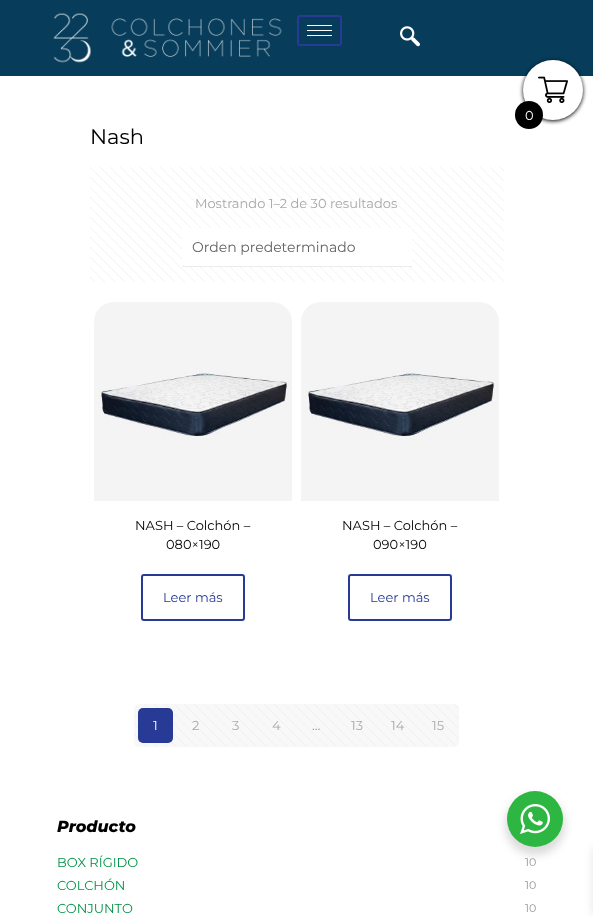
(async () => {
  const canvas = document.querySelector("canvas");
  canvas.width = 593;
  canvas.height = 916;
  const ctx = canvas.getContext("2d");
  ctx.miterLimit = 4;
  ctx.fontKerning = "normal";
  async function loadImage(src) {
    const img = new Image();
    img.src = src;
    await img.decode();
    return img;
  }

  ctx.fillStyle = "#ffffff";
  ctx.fillRect(0, 0, 593, 916);
  ctx.fillStyle = "#073d5b";
  ctx.fillRect(0, 0, 593, 76);
  ctx.drawImage(await loadImage("img/1.png"), 53, 13, 229, 50);
  ctx.beginPath();
  ctx.roundRect(298, 16, 43, 29, 2);
  ctx.strokeStyle = "#263a96";
  ctx.lineWidth = 2;
  ctx.stroke();
  for (const [x, y, w, h, color] of [
    [307, 25, 25, 1, "#ffffff"],
    [307, 30, 25, 1, "#ffffff"],
    [307, 35, 25, 1, "#ffffff"],
  ]) {
    ctx.fillStyle = color;
    ctx.fillRect(x, y, w, h);
  }
  ctx.drawImage(await loadImage("img/2.png"), 400, 26, 20, 21);
  ctx.fillStyle = "#000000";
  ctx.filter = "blur(2px)";
  ctx.beginPath();
  ctx.roundRect(523, 61, 60, 60, 30);
  ctx.fill();
  ctx.filter = "none";
  ctx.fillStyle = "#ffffff";
  ctx.beginPath();
  ctx.arc(553, 90, 30, 0, Math.PI * 2);
  ctx.fill();
  ctx.drawImage(await loadImage("img/3.png"), 538, 76, 30, 27);
  ctx.fillStyle = "#000000";
  ctx.beginPath();
  ctx.arc(529, 115, 14, 0, Math.PI * 2);
  ctx.fill();
  ctx.fillStyle = "rgba(0, 0, 0, 0.1)";
  ctx.filter = "blur(5px)";
  ctx.beginPath();
  ctx.rect(593, 848, 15, 67);
  ctx.fill();
  ctx.filter = "none";
  ctx.drawImage(await loadImage("img/4.png"), 90, 167, 414, 115);
  ctx.fillStyle = "#ffffff";
  ctx.fillRect(182, 228, 230, 38);
  ctx.fillStyle = "#ebebeb";
  ctx.fillRect(182, 266, 230, 1);
  ctx.drawImage(await loadImage("img/5.png"), 94, 302, 198, 199);
  ctx.beginPath();
  ctx.roundRect(142, 575, 102, 45, 2);
  ctx.stroke();
  ctx.drawImage(await loadImage("img/6.png"), 301, 302, 198, 199);
  ctx.beginPath();
  ctx.roundRect(349, 575, 102, 45, 2);
  ctx.stroke();
  ctx.fillStyle = "#f8f8f8";
  ctx.beginPath();
  ctx.roundRect(134, 704, 325, 43, 5);
  ctx.fill();
  ctx.drawImage(await loadImage("img/7.png"), 134, 704, 325, 43);
  ctx.fillStyle = "#263a96";
  ctx.beginPath();
  ctx.roundRect(138, 708, 35, 35, 5);
  ctx.fill();
  ctx.fillStyle = "rgba(0, 0, 0, 0.14)";
  ctx.filter = "blur(4px)";
  ctx.beginPath();
  ctx.roundRect(505, 795, 60, 60, 30);
  ctx.fill();
  ctx.filter = "none";
  ctx.fillStyle = "#2db742";
  ctx.beginPath();
  ctx.arc(535, 819, 28, 0, Math.PI * 2);
  ctx.fill();
  ctx.drawImage(await loadImage("img/8.png"), 520, 804, 30, 30);
  ctx.font = "13px Montserrat";
  ctx.fillStyle = "#ffffff";
  ctx.fillText("0", 525, 120);
  ctx.font = "21px Montserrat";
  ctx.fillStyle = "#000000";
  ctx.fillText("Nash", 90, 144);
  ctx.font = "13px Montserrat";
  ctx.fillStyle = "#a8a8a8";
  ctx.fillText("Mostrando 1–2 de 30 resultados", 195, 208);
  ctx.font = "14px Montserrat";
  ctx.fillStyle = "#626262";
  ctx.fillText("Orden predeterminado", 192, 252);
  ctx.font = "13px Montserrat";
  ctx.fillStyle = "#000000";
  ctx.fillText("NASH – Colchón –", 135, 530);
  ctx.fillText("080×190", 166, 549);
  ctx.fillStyle = "#263a96";
  ctx.fillText("Leer más", 163, 602);
  ctx.fillStyle = "#000000";
  ctx.fillText("NASH – Colchón –", 342, 530);
  ctx.fillText("090×190", 373, 549);
  ctx.fillStyle = "#263a96";
  ctx.fillText("Leer más", 370, 602);
  ctx.fillStyle = "#ffffff";
  ctx.fillText("1", 153, 730);
  ctx.fillStyle = "#a8a8a8";
  for (const [text, x, y] of [
    ["2", 192, 730],
    ["3", 232, 730],
    ["4", 272, 730],
  ]) {
    ctx.fillText(text, x, y);
  }
  ctx.fillStyle = "#99918a";
  ctx.fillText("…", 312, 730);
  ctx.fillStyle = "#a8a8a8";
  for (const [text, x, y] of [
    ["13", 351, 730],
    ["14", 391, 730],
    ["15", 432, 730],
  ]) {
    ctx.fillText(text, x, y);
  }
  ctx.font = "italic 800 16px Montserrat";
  ctx.fillStyle = "#000000";
  ctx.fillText("Producto", 57, 832);
  ctx.font = "13px Montserrat";
  ctx.fillStyle = "#009245";
  ctx.fillText("BOX RÍGIDO", 57, 867);
  ctx.font = "11px Montserrat";
  ctx.fillStyle = "#99918a";
  ctx.fillText("10", 525, 866);
  ctx.font = "13px Montserrat";
  ctx.fillStyle = "#009245";
  ctx.fillText("COLCHÓN", 57, 890);
  ctx.font = "11px Montserrat";
  ctx.fillStyle = "#99918a";
  ctx.fillText("10", 525, 889);
  ctx.font = "13px Montserrat";
  ctx.fillStyle = "#009245";
  ctx.fillText("CONJUNTO", 57, 913);
  ctx.font = "11px Montserrat";
  ctx.fillStyle = "#99918a";
  ctx.fillText("10", 525, 912);
})();
